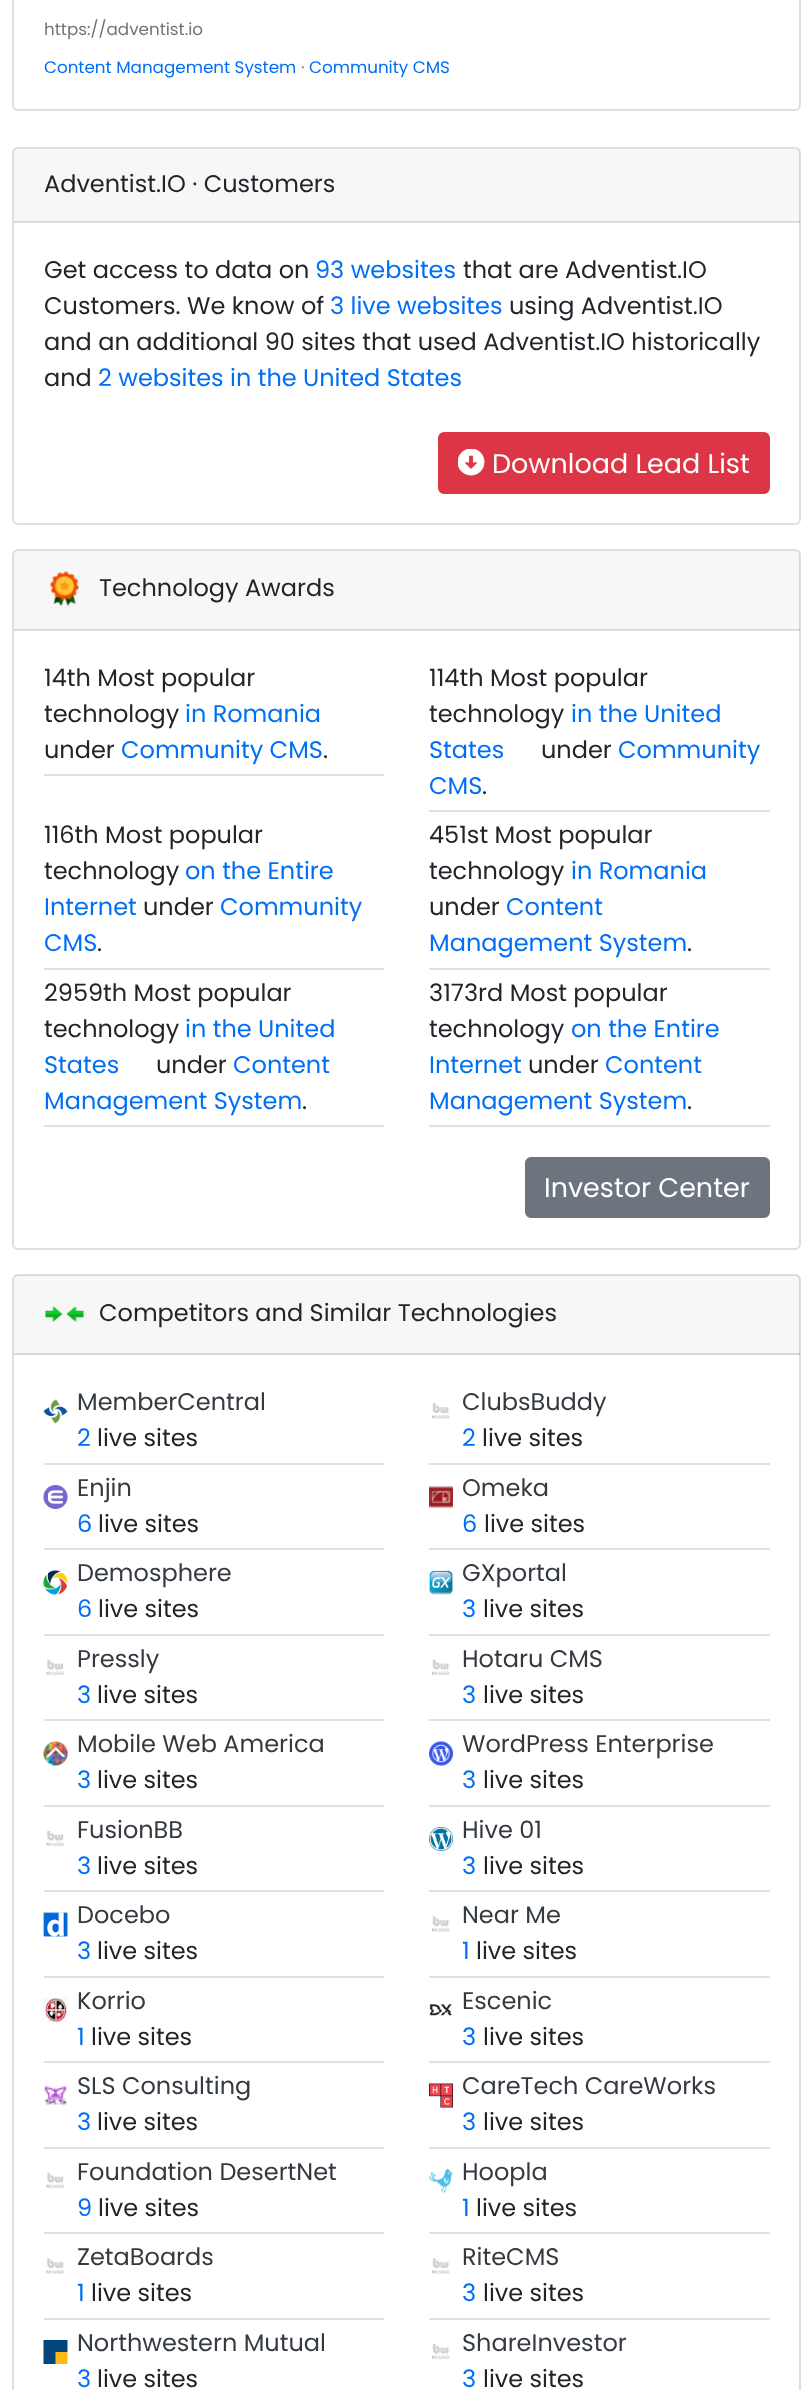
(async () => {
  const canvas = document.querySelector("canvas");
  canvas.width = 812;
  canvas.height = 2390;
  const ctx = canvas.getContext("2d");
  ctx.miterLimit = 4;
  ctx.fontKerning = "normal";
  async function loadImage(src) {
    const img = new Image();
    img.src = src;
    await img.decode();
    return img;
  }

  ctx.fillStyle = "#ffffff";
  ctx.fillRect(0, 0, 812, 2390);
  ctx.beginPath();
  ctx.roundRect(13, -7, 787, 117, 5);
  ctx.strokeStyle = "#dfdfdf";
  ctx.lineWidth = 2;
  ctx.stroke();
  ctx.beginPath();
  ctx.roundRect(13, 148, 787, 376, 5);
  ctx.stroke();
  ctx.fillStyle = "rgba(0, 0, 0, 0.03)";
  ctx.fillRect(14, 149, 786, 73);
  ctx.fillStyle = "rgba(0, 0, 0, 0.12)";
  ctx.fillRect(14, 221, 786, 2);
  ctx.fillStyle = "#dc3545";
  ctx.beginPath();
  ctx.roundRect(439, 433, 330, 60, 5);
  ctx.fill();
  ctx.strokeStyle = "#dc3545";
  ctx.stroke();
  ctx.drawImage(await loadImage("img/1.png"), 458, 449, 27, 27);
  ctx.beginPath();
  ctx.roundRect(13, 550, 787, 699, 5);
  ctx.strokeStyle = "#dfdfdf";
  ctx.stroke();
  ctx.fillStyle = "rgba(0, 0, 0, 0.03)";
  ctx.fillRect(14, 551, 786, 79);
  ctx.fillStyle = "rgba(0, 0, 0, 0.12)";
  ctx.fillRect(14, 629, 786, 2);
  ctx.drawImage(await loadImage("img/2.png"), 50, 571, 29, 35);
  for (const [x, y, w, h, color] of [
    [44, 774, 340, 2, "#dee2e6"],
    [429, 810, 341, 2, "#dee2e6"],
    [44, 968, 340, 2, "#dee2e6"],
    [429, 968, 341, 2, "#dee2e6"],
    [44, 1125, 340, 2, "#dee2e6"],
    [429, 1125, 341, 2, "#dee2e6"],
  ]) {
    ctx.fillStyle = color;
    ctx.fillRect(x, y, w, h);
  }
  ctx.fillStyle = "#6c757d";
  ctx.beginPath();
  ctx.roundRect(526, 1158, 243, 59, 5);
  ctx.fill();
  ctx.strokeStyle = "#6c757d";
  ctx.stroke();
  ctx.beginPath();
  ctx.roundRect(13, 1275, 787, 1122, 5);
  ctx.strokeStyle = "#dfdfdf";
  ctx.stroke();
  ctx.fillStyle = "rgba(0, 0, 0, 0.03)";
  ctx.fillRect(14, 1275, 786, 80);
  ctx.fillStyle = "rgba(0, 0, 0, 0.12)";
  ctx.fillRect(14, 1353, 786, 2);
  ctx.drawImage(await loadImage("img/3.png"), 44, 1306, 41, 16);
  ctx.drawImage(await loadImage("img/4.png"), 43, 1399, 25, 25);
  ctx.fillStyle = "#dee2e6";
  ctx.fillRect(44, 1463, 340, 2);
  ctx.drawImage(await loadImage("img/5.png"), 431, 1403, 19, 16);
  ctx.fillRect(429, 1463, 341, 2);
  ctx.drawImage(await loadImage("img/6.png"), 43, 1485, 25, 24);
  ctx.fillRect(44, 1548, 340, 2);
  ctx.drawImage(await loadImage("img/7.png"), 429, 1486, 24, 22);
  ctx.fillRect(429, 1548, 341, 2);
  ctx.drawImage(await loadImage("img/8.png"), 43, 1570, 25, 25);
  ctx.fillRect(44, 1634, 340, 2);
  ctx.drawImage(await loadImage("img/9.png"), 429, 1570, 24, 25);
  ctx.fillRect(429, 1634, 341, 2);
  ctx.drawImage(await loadImage("img/10.png"), 46, 1659, 18, 17);
  ctx.fillRect(44, 1719, 340, 2);
  ctx.drawImage(await loadImage("img/11.png"), 431, 1659, 19, 17);
  ctx.fillRect(429, 1719, 341, 2);
  ctx.drawImage(await loadImage("img/12.png"), 43, 1741, 25, 25);
  ctx.fillRect(44, 1805, 340, 2);
  ctx.drawImage(await loadImage("img/13.png"), 429, 1741, 24, 25);
  ctx.fillRect(429, 1805, 341, 2);
  ctx.drawImage(await loadImage("img/10.png"), 46, 1830, 18, 17);
  ctx.fillRect(44, 1890, 340, 2);
  ctx.drawImage(await loadImage("img/14.png"), 429, 1827, 24, 24);
  ctx.fillRect(429, 1890, 341, 2);
  ctx.drawImage(await loadImage("img/15.png"), 43, 1912, 25, 25);
  ctx.fillRect(44, 1976, 340, 2);
  ctx.drawImage(await loadImage("img/5.png"), 431, 1916, 19, 16);
  ctx.fillRect(429, 1976, 341, 2);
  ctx.drawImage(await loadImage("img/16.png"), 43, 1998, 25, 24);
  ctx.fillRect(44, 2061, 340, 2);
  ctx.drawImage(await loadImage("img/17.png"), 429, 2004, 23, 12);
  ctx.fillRect(429, 2061, 341, 2);
  ctx.drawImage(await loadImage("img/18.png"), 44, 2086, 23, 19);
  ctx.fillRect(44, 2147, 340, 2);
  ctx.drawImage(await loadImage("img/19.png"), 429, 2083, 24, 25);
  ctx.fillRect(429, 2147, 341, 2);
  ctx.drawImage(await loadImage("img/10.png"), 46, 2172, 18, 17);
  ctx.fillRect(44, 2232, 340, 2);
  ctx.drawImage(await loadImage("img/20.png"), 429, 2169, 24, 24);
  ctx.fillRect(429, 2232, 341, 2);
  ctx.drawImage(await loadImage("img/21.png"), 46, 2258, 18, 16);
  ctx.fillRect(44, 2318, 340, 2);
  ctx.drawImage(await loadImage("img/22.png"), 431, 2258, 19, 16);
  ctx.fillRect(429, 2318, 341, 2);
  ctx.drawImage(await loadImage("img/23.png"), 43, 2340, 25, 24);
  ctx.drawImage(await loadImage("img/11.png"), 431, 2343, 19, 17);
  ctx.font = "16.75px Poppins";
  ctx.fillStyle = "#6c757d";
  ctx.fillText("https://adventist.io", 44, 35);
  ctx.fillStyle = "#006ff5";
  ctx.fillText("Content Management System", 44, 73);
  ctx.fillStyle = "#6c757d";
  ctx.fillText("·", 301, 73);
  ctx.fillStyle = "#006ff5";
  ctx.fillText("Community CMS", 309, 73);
  ctx.font = "24px Poppins";
  ctx.fillStyle = "#212529";
  ctx.fillText("Adventist.IO · Customers", 44, 192);
  ctx.fillText("Get access to data on", 44, 278);
  ctx.fillStyle = "#006ff5";
  ctx.fillText("93 websites", 315, 278);
  ctx.fillStyle = "#212529";
  ctx.fillText("that are Adventist.IO", 463, 278);
  ctx.fillText("Customers. We know of", 44, 314);
  ctx.fillStyle = "#006ff5";
  ctx.fillText("3 live websites", 330, 314);
  ctx.fillStyle = "#212529";
  for (const [text, x, y] of [
    ["using Adventist.IO", 509, 314],
    ["and an additional 90 sites that used Adventist.IO historically", 44, 350],
    ["and", 44, 386],
  ]) {
    ctx.fillText(text, x, y);
  }
  ctx.fillStyle = "#006ff5";
  ctx.fillText("2 websites in the United States", 98, 386);
  ctx.font = "27px Poppins";
  ctx.fillStyle = "#ffffff";
  ctx.fillText("Download Lead List", 492, 473);
  ctx.font = "24px Poppins";
  ctx.fillStyle = "#212529";
  for (const [text, x, y] of [
    ["Technology Awards", 99, 596],
    ["14th Most popular", 44, 686],
    ["technology", 44, 722],
  ]) {
    ctx.fillText(text, x, y);
  }
  ctx.fillStyle = "#006ff5";
  ctx.fillText("in Romania", 185, 722);
  ctx.fillStyle = "#212529";
  ctx.fillText("under", 44, 758);
  ctx.fillStyle = "#006ff5";
  ctx.fillText("Community CMS", 121, 758);
  ctx.fillStyle = "#212529";
  for (const [text, x, y] of [
    [".", 323, 758],
    ["114th Most popular", 429, 686],
    ["technology", 429, 722],
  ]) {
    ctx.fillText(text, x, y);
  }
  ctx.fillStyle = "#006ff5";
  ctx.fillText("in the United", 571, 722);
  ctx.fillText("States", 429, 758);
  ctx.fillStyle = "#212529";
  ctx.fillText("under", 541, 758);
  ctx.fillStyle = "#006ff5";
  ctx.fillText("Community", 618, 758);
  ctx.fillText("CMS", 429, 794);
  ctx.fillStyle = "#212529";
  for (const [text, x, y] of [
    [".", 482, 794],
    ["116th Most popular", 44, 843],
    ["technology", 44, 879],
  ]) {
    ctx.fillText(text, x, y);
  }
  ctx.fillStyle = "#006ff5";
  ctx.fillText("on the Entire", 185, 879);
  ctx.fillText("Internet", 44, 915);
  ctx.fillStyle = "#212529";
  ctx.fillText("under", 143, 915);
  ctx.fillStyle = "#006ff5";
  ctx.fillText("Community", 220, 915);
  ctx.fillText("CMS", 44, 951);
  ctx.fillStyle = "#212529";
  for (const [text, x, y] of [
    [".", 97, 951],
    ["451st Most popular", 429, 843],
    ["technology", 429, 879],
  ]) {
    ctx.fillText(text, x, y);
  }
  ctx.fillStyle = "#006ff5";
  ctx.fillText("in Romania", 571, 879);
  ctx.fillStyle = "#212529";
  ctx.fillText("under", 429, 915);
  ctx.fillStyle = "#006ff5";
  ctx.fillText("Content", 506, 915);
  ctx.fillText("Management System", 429, 951);
  ctx.fillStyle = "#212529";
  for (const [text, x, y] of [
    [".", 687, 951],
    ["2959th Most popular", 44, 1001],
    ["technology", 44, 1037],
  ]) {
    ctx.fillText(text, x, y);
  }
  ctx.fillStyle = "#006ff5";
  ctx.fillText("in the United", 185, 1037);
  ctx.fillText("States", 44, 1073);
  ctx.fillStyle = "#212529";
  ctx.fillText("under", 156, 1073);
  ctx.fillStyle = "#006ff5";
  ctx.fillText("Content", 233, 1073);
  ctx.fillText("Management System", 44, 1109);
  ctx.fillStyle = "#212529";
  for (const [text, x, y] of [
    [".", 302, 1109],
    ["3173rd Most popular", 429, 1001],
    ["technology", 429, 1037],
  ]) {
    ctx.fillText(text, x, y);
  }
  ctx.fillStyle = "#006ff5";
  ctx.fillText("on the Entire", 571, 1037);
  ctx.fillText("Internet", 429, 1073);
  ctx.fillStyle = "#212529";
  ctx.fillText("under", 528, 1073);
  ctx.fillStyle = "#006ff5";
  ctx.fillText("Content", 605, 1073);
  ctx.fillText("Management System", 429, 1109);
  ctx.fillStyle = "#212529";
  ctx.fillText(".", 687, 1109);
  ctx.font = "27px Poppins";
  ctx.fillStyle = "#ffffff";
  ctx.fillText("Investor Center", 544, 1197);
  ctx.font = "24px Poppins";
  ctx.fillStyle = "#212529";
  ctx.fillText("Competitors and Similar Technologies", 99, 1321);
  ctx.fillStyle = "#343a40";
  ctx.fillText("MemberCentral", 77, 1410);
  ctx.fillStyle = "#006ff5";
  ctx.fillText("2", 77, 1446);
  ctx.fillStyle = "#212529";
  ctx.fillText("live sites", 97, 1446);
  ctx.fillStyle = "#343a40";
  ctx.fillText("ClubsBuddy", 462, 1410);
  ctx.fillStyle = "#006ff5";
  ctx.fillText("2", 462, 1446);
  ctx.fillStyle = "#212529";
  ctx.fillText("live sites", 482, 1446);
  ctx.fillStyle = "#343a40";
  ctx.fillText("Enjin", 77, 1496);
  ctx.fillStyle = "#006ff5";
  ctx.fillText("6", 77, 1532);
  ctx.fillStyle = "#212529";
  ctx.fillText("live sites", 98, 1532);
  ctx.fillStyle = "#343a40";
  ctx.fillText("Omeka", 462, 1496);
  ctx.fillStyle = "#006ff5";
  ctx.fillText("6", 462, 1532);
  ctx.fillStyle = "#212529";
  ctx.fillText("live sites", 484, 1532);
  ctx.fillStyle = "#343a40";
  ctx.fillText("Demosphere", 77, 1581);
  ctx.fillStyle = "#006ff5";
  ctx.fillText("6", 77, 1617);
  ctx.fillStyle = "#212529";
  ctx.fillText("live sites", 98, 1617);
  ctx.fillStyle = "#343a40";
  ctx.fillText("GXportal", 462, 1581);
  ctx.fillStyle = "#006ff5";
  ctx.fillText("3", 462, 1617);
  ctx.fillStyle = "#212529";
  ctx.fillText("live sites", 483, 1617);
  ctx.fillStyle = "#343a40";
  ctx.fillText("Pressly", 77, 1667);
  ctx.fillStyle = "#006ff5";
  ctx.fillText("3", 77, 1703);
  ctx.fillStyle = "#212529";
  ctx.fillText("live sites", 97, 1703);
  ctx.fillStyle = "#343a40";
  ctx.fillText("Hotaru CMS", 462, 1667);
  ctx.fillStyle = "#006ff5";
  ctx.fillText("3", 462, 1703);
  ctx.fillStyle = "#212529";
  ctx.fillText("live sites", 483, 1703);
  ctx.fillStyle = "#343a40";
  ctx.fillText("Mobile Web America", 77, 1752);
  ctx.fillStyle = "#006ff5";
  ctx.fillText("3", 77, 1788);
  ctx.fillStyle = "#212529";
  ctx.fillText("live sites", 97, 1788);
  ctx.fillStyle = "#343a40";
  ctx.fillText("WordPress Enterprise", 462, 1752);
  ctx.fillStyle = "#006ff5";
  ctx.fillText("3", 462, 1788);
  ctx.fillStyle = "#212529";
  ctx.fillText("live sites", 483, 1788);
  ctx.fillStyle = "#343a40";
  ctx.fillText("FusionBB", 77, 1838);
  ctx.fillStyle = "#006ff5";
  ctx.fillText("3", 77, 1874);
  ctx.fillStyle = "#212529";
  ctx.fillText("live sites", 97, 1874);
  ctx.fillStyle = "#343a40";
  ctx.fillText("Hive 01", 462, 1838);
  ctx.fillStyle = "#006ff5";
  ctx.fillText("3", 462, 1874);
  ctx.fillStyle = "#212529";
  ctx.fillText("live sites", 483, 1874);
  ctx.fillStyle = "#343a40";
  ctx.fillText("Docebo", 77, 1923);
  ctx.fillStyle = "#006ff5";
  ctx.fillText("3", 77, 1959);
  ctx.fillStyle = "#212529";
  ctx.fillText("live sites", 97, 1959);
  ctx.fillStyle = "#343a40";
  ctx.fillText("Near Me", 462, 1923);
  ctx.fillStyle = "#006ff5";
  ctx.fillText("1", 462, 1959);
  ctx.fillStyle = "#212529";
  ctx.fillText("live sites", 476, 1959);
  ctx.fillStyle = "#343a40";
  ctx.fillText("Korrio", 77, 2009);
  ctx.fillStyle = "#006ff5";
  ctx.fillText("1", 77, 2045);
  ctx.fillStyle = "#212529";
  ctx.fillText("live sites", 91, 2045);
  ctx.fillStyle = "#343a40";
  ctx.fillText("Escenic", 462, 2009);
  ctx.fillStyle = "#006ff5";
  ctx.fillText("3", 462, 2045);
  ctx.fillStyle = "#212529";
  ctx.fillText("live sites", 483, 2045);
  ctx.fillStyle = "#343a40";
  ctx.fillText("SLS Consulting", 77, 2094);
  ctx.fillStyle = "#006ff5";
  ctx.fillText("3", 77, 2130);
  ctx.fillStyle = "#212529";
  ctx.fillText("live sites", 97, 2130);
  ctx.fillStyle = "#343a40";
  ctx.fillText("CareTech CareWorks", 462, 2094);
  ctx.fillStyle = "#006ff5";
  ctx.fillText("3", 462, 2130);
  ctx.fillStyle = "#212529";
  ctx.fillText("live sites", 483, 2130);
  ctx.fillStyle = "#343a40";
  ctx.fillText("Foundation DesertNet", 77, 2180);
  ctx.fillStyle = "#006ff5";
  ctx.fillText("9", 77, 2216);
  ctx.fillStyle = "#212529";
  ctx.fillText("live sites", 98, 2216);
  ctx.fillStyle = "#343a40";
  ctx.fillText("Hoopla", 462, 2180);
  ctx.fillStyle = "#006ff5";
  ctx.fillText("1", 462, 2216);
  ctx.fillStyle = "#212529";
  ctx.fillText("live sites", 476, 2216);
  ctx.fillStyle = "#343a40";
  ctx.fillText("ZetaBoards", 77, 2265);
  ctx.fillStyle = "#006ff5";
  ctx.fillText("1", 77, 2301);
  ctx.fillStyle = "#212529";
  ctx.fillText("live sites", 91, 2301);
  ctx.fillStyle = "#343a40";
  ctx.fillText("RiteCMS", 462, 2265);
  ctx.fillStyle = "#006ff5";
  ctx.fillText("3", 462, 2301);
  ctx.fillStyle = "#212529";
  ctx.fillText("live sites", 483, 2301);
  ctx.fillStyle = "#343a40";
  ctx.fillText("Northwestern Mutual", 77, 2351);
  ctx.fillStyle = "#006ff5";
  ctx.fillText("3", 77, 2387);
  ctx.fillStyle = "#212529";
  ctx.fillText("live sites", 97, 2387);
  ctx.fillStyle = "#343a40";
  ctx.fillText("ShareInvestor", 462, 2351);
  ctx.fillStyle = "#006ff5";
  ctx.fillText("3", 462, 2387);
  ctx.fillStyle = "#212529";
  ctx.fillText("live sites", 483, 2387);
})();
